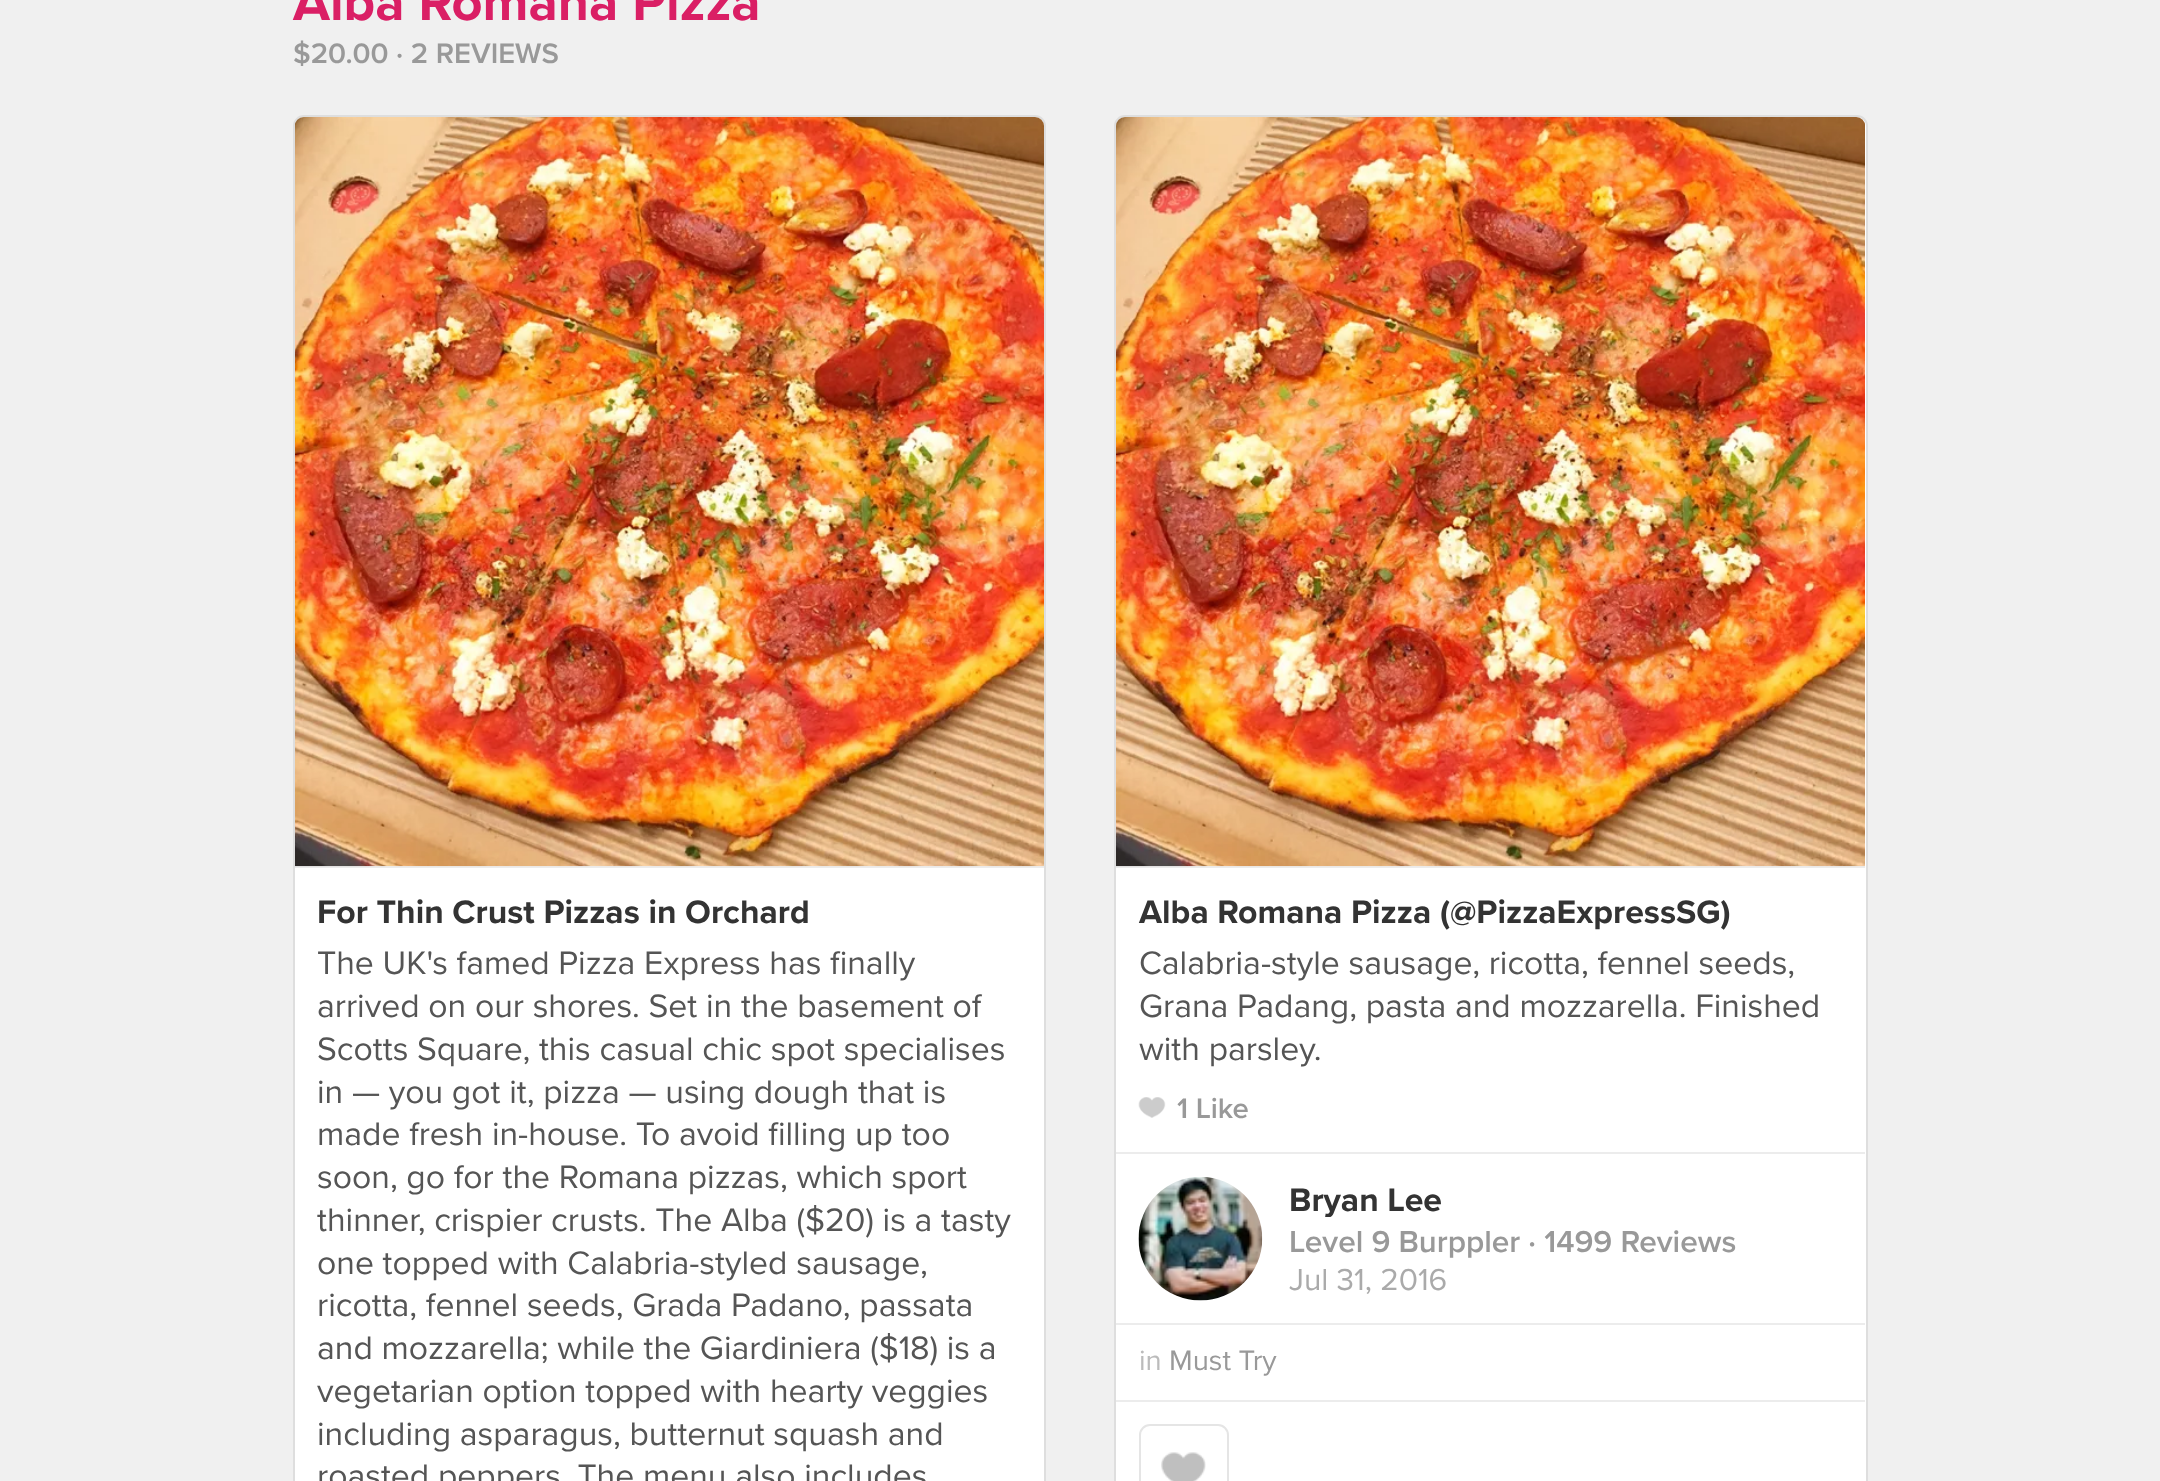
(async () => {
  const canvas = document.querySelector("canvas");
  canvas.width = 2160;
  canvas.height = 1481;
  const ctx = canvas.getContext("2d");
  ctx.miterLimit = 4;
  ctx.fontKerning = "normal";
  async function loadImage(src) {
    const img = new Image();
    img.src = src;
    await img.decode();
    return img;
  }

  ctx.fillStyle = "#f0f0f0";
  ctx.fillRect(0, 0, 2160, 1481);
  ctx.fillStyle = "#ffffff";
  ctx.beginPath();
  ctx.roundRect(294, 116, 751, 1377, 10);
  ctx.fill();
  ctx.strokeStyle = "#dedede";
  ctx.lineWidth = 2;
  ctx.stroke();
  ctx.fillStyle = "#ececec";
  ctx.fillRect(295, 866, 749, 2);
  ctx.drawImage(await loadImage("img/1.png"), 295, 117, 749, 750);
  ctx.fillStyle = "#ffffff";
  ctx.beginPath();
  ctx.roundRect(1115, 116, 752, 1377, 10);
  ctx.fill();
  ctx.stroke();
  ctx.fillStyle = "#ececec";
  ctx.fillRect(1116, 866, 749, 2);
  ctx.drawImage(await loadImage("img/2.png"), 1116, 117, 749, 750);
  ctx.drawImage(await loadImage("img/3.png"), 1138, 1097, 28, 21);
  ctx.fillRect(1116, 1152, 749, 2);
  ctx.drawImage(await loadImage("img/4.png"), 1138, 1177, 125, 124);
  ctx.fillRect(1116, 1323, 749, 2);
  ctx.fillRect(1116, 1400, 749, 2);
  ctx.drawImage(await loadImage("img/5.png"), 1161, 1452, 45, 29);
  ctx.beginPath();
  ctx.roundRect(1140, 1425, 88, 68, 10);
  ctx.strokeStyle = "#e5e5e5";
  ctx.stroke();
  ctx.font = "bold 54px Proxima Nova";
  ctx.fillStyle = "#da1f65";
  ctx.fillText("Alba Romana Pizza", 293, 20);
  ctx.font = "600 29.25px Proxima Nova";
  ctx.fillStyle = "#999999";
  ctx.fillText("$20.00 · 2 REVIEWS", 293, 63);
  ctx.font = "bold 33.75px Proxima Nova";
  ctx.fillStyle = "#333333";
  ctx.fillText("For Thin Crust Pizzas in Orchard", 317, 923);
  ctx.font = "33.75px Proxima Nova";
  ctx.fillStyle = "#555555";
  for (const [text, x, y] of [
    ["The UK's famed Pizza Express has finally", 317, 974],
    ["arrived on our shores. Set in the basement of", 317, 1017],
    ["Scotts Square, this casual chic spot specialises", 317, 1060],
    ["in — you got it, pizza — using dough that is", 317, 1103],
    ["made fresh in-house. To avoid filling up too", 317, 1145],
    ["soon, go for the Romana pizzas, which sport", 317, 1188],
    ["thinner, crispier crusts. The Alba ($20) is a tasty", 317, 1231],
    ["one topped with Calabria-styled sausage,", 317, 1274],
    ["ricotta, fennel seeds, Grada Padano, passata", 317, 1316],
    ["and mozzarella; while the Giardiniera ($18) is a", 317, 1359],
    ["vegetarian option topped with hearty veggies", 317, 1402],
    ["including asparagus, butternut squash and", 317, 1445],
    ["roasted peppers. The menu also includes", 317, 1487],
  ]) {
    ctx.fillText(text, x, y);
  }
  ctx.font = "bold 33.75px Proxima Nova";
  ctx.fillStyle = "#333333";
  ctx.fillText("Alba Romana Pizza (@PizzaExpressSG)", 1139, 923);
  ctx.font = "33.75px Proxima Nova";
  ctx.fillStyle = "#555555";
  for (const [text, x, y] of [
    ["Calabria-style sausage, ricotta, fennel seeds,", 1139, 974],
    ["Grana Padang, pasta and mozzarella. Finished", 1139, 1017],
    ["with parsley.", 1139, 1060],
  ]) {
    ctx.fillText(text, x, y);
  }
  ctx.font = "600 29.25px Proxima Nova";
  ctx.fillStyle = "#999999";
  ctx.fillText("1 Like", 1177, 1118);
  ctx.save();
  ctx.beginPath();
  ctx.rect(1289, 1184, 448, 33);
  ctx.clip();
  ctx.font = "bold 33.75px Proxima Nova";
  ctx.fillStyle = "#333333";
  ctx.fillText("Bryan Lee", 1289, 1211);
  ctx.restore();
  ctx.font = "600 31.5px Proxima Nova";
  ctx.fillText("Level 9 Burppler · 1499 Reviews", 1289, 1252);
  ctx.font = "31.5px Proxima Nova";
  ctx.fillStyle = "#aaaaaa";
  ctx.fillText("Jul 31, 2016", 1289, 1290);
  ctx.font = "29.25px Proxima Nova";
  ctx.fillStyle = "#bbbbbb";
  ctx.fillText("in", 1139, 1370);
  ctx.fillStyle = "#999999";
  ctx.fillText("Must Try", 1169, 1370);
})();
